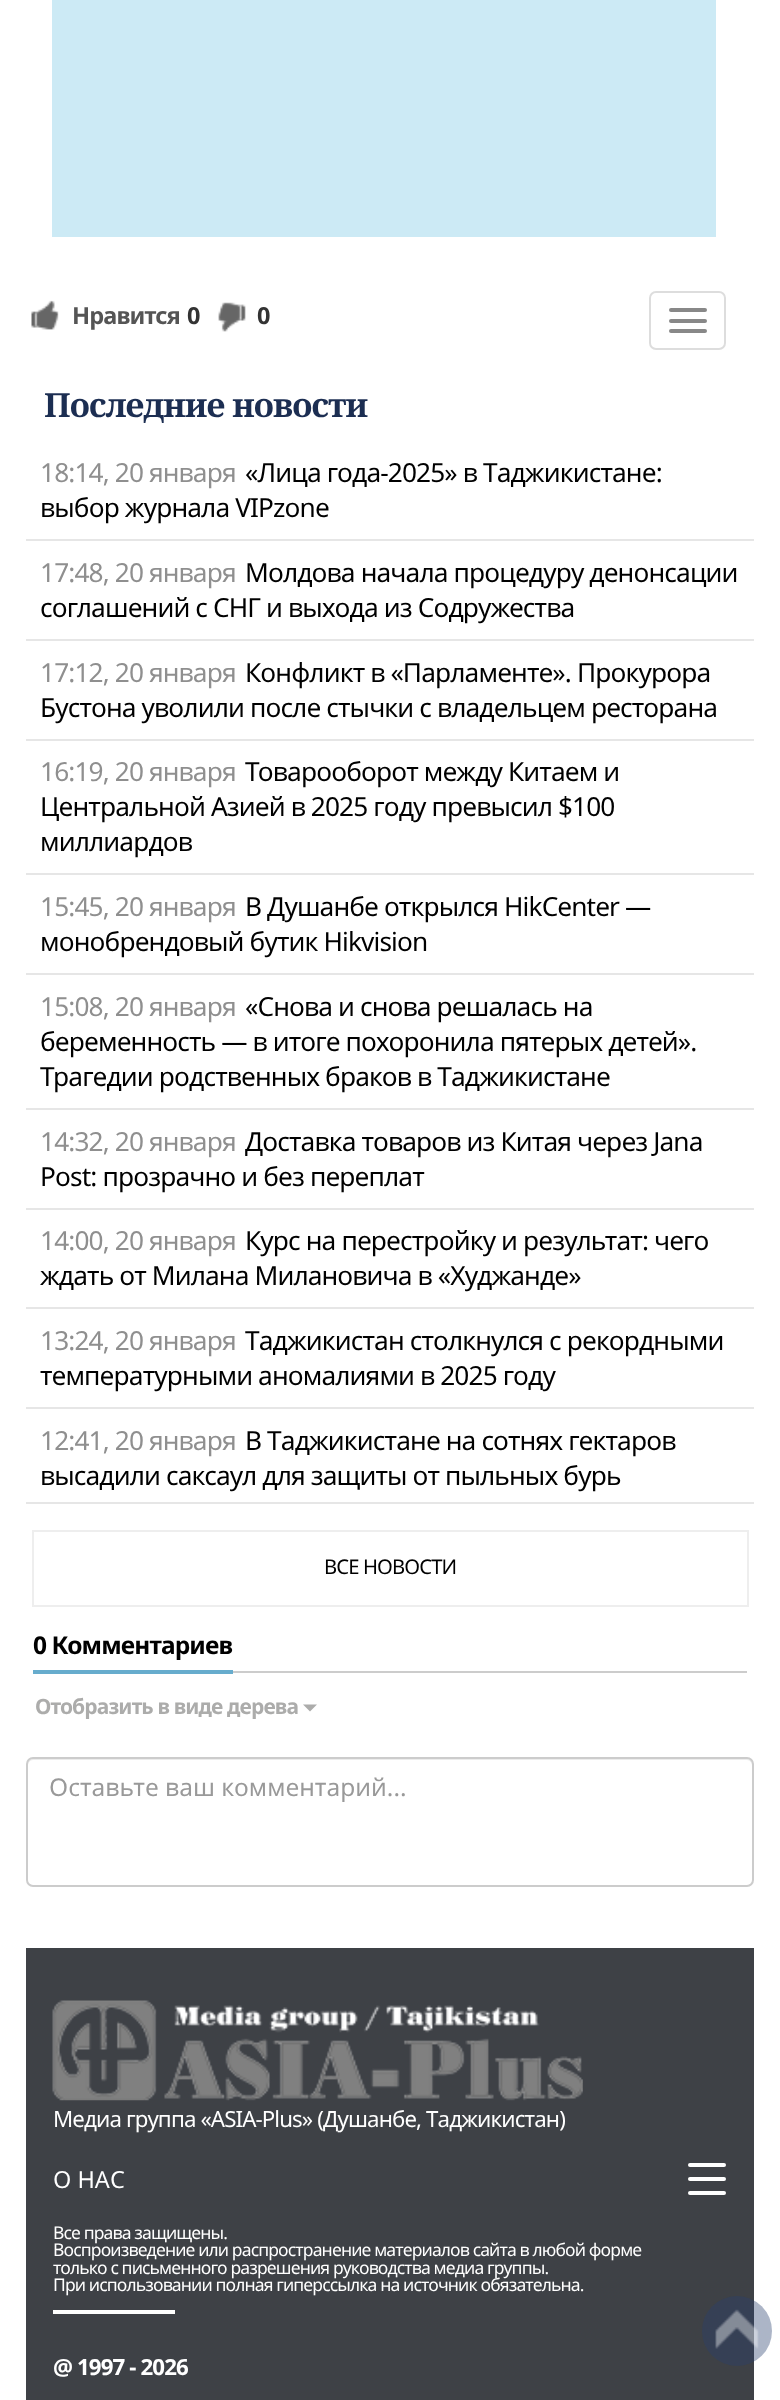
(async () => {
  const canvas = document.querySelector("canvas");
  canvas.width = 780;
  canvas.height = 2400;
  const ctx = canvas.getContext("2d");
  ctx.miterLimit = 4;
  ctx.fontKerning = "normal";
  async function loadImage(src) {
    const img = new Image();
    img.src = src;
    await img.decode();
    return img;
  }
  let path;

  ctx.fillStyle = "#ffffff";
  ctx.fillRect(0, 0, 780, 2400);
  ctx.fillStyle = "#cceaf5";
  ctx.fillRect(52, 0, 664, 237);
  ctx.drawImage(await loadImage("img/1.png"), 31, 300, 28, 30);
  ctx.drawImage(await loadImage("img/2.png"), 218, 302, 28, 30);
  ctx.beginPath();
  ctx.roundRect(650, 292, 75, 57, 6);
  ctx.strokeStyle = "#dddddd";
  ctx.lineWidth = 2;
  ctx.stroke();
  ctx.fillStyle = "#888888";
  ctx.beginPath();
  ctx.roundRect(669, 308, 38, 4, 2);
  ctx.fill();
  ctx.beginPath();
  ctx.roundRect(669, 319, 38, 4, 2);
  ctx.fill();
  ctx.beginPath();
  ctx.roundRect(669, 329, 38, 4, 2);
  ctx.fill();
  for (const [x, y, w, h, color] of [
    [26, 539, 728, 2, "#e6e6e6"],
    [26, 639, 728, 2, "#e6e6e6"],
    [26, 739, 728, 2, "#e6e6e6"],
    [26, 873, 728, 2, "#e6e6e6"],
    [26, 973, 728, 2, "#e6e6e6"],
    [26, 1108, 728, 2, "#e6e6e6"],
    [26, 1208, 728, 2, "#e6e6e6"],
    [26, 1307, 728, 2, "#e6e6e6"],
    [26, 1407, 728, 2, "#e6e6e6"],
    [26, 1502, 728, 2, "#e6e6e6"],
  ]) {
    ctx.fillStyle = color;
    ctx.fillRect(x, y, w, h);
  }
  ctx.strokeStyle = "#eeeeee";
  ctx.strokeRect(33, 1531, 715, 75);
  ctx.fillStyle = "#cccccc";
  ctx.fillRect(233, 1671, 514, 2);
  ctx.fillStyle = "#67accd";
  ctx.fillRect(33, 1670, 200, 4);
  ctx.fillStyle = "#acacab";
  path = new Path2D("M303 1704.5H317L310 1711.5Z");
  ctx.fill(path);
  ctx.fillStyle = "#ececec";
  path = new Path2D("M33 1760H747C750 1760 752 1763 752 1766V1881L751 1884C752 1883 753 1881 753 1880V1764C753 1761 751 1759 748 1759H33C30 1759 28 1761 28 1764V1766C28 1763 30 1760 33 1760Z");
  ctx.fill(path);
  ctx.beginPath();
  ctx.roundRect(27, 1758, 726, 128, 6);
  ctx.strokeStyle = "#cccccc";
  ctx.stroke();
  ctx.fillStyle = "#3e4146";
  ctx.fillRect(26, 1948, 728, 452);
  ctx.drawImage(await loadImage("img/3.png"), 52, 2000, 531, 101);
  ctx.fillStyle = "#ffffff";
  ctx.beginPath();
  ctx.roundRect(688, 2163, 38, 4, 2);
  ctx.fill();
  ctx.beginPath();
  ctx.roundRect(688, 2177, 38, 4, 2);
  ctx.fill();
  ctx.beginPath();
  ctx.roundRect(688, 2191, 38, 4, 2);
  ctx.fill();
  ctx.fillRect(53, 2310, 122, 4);
  ctx.fillStyle = "rgba(42, 65, 111, 0.39)";
  ctx.beginPath();
  ctx.arc(737, 2331, 35, 0, Math.PI * 2);
  ctx.fill();
  ctx.drawImage(await loadImage("img/4.png"), 715, 2309, 44, 40);
  ctx.letterSpacing = "-0.88px";
  ctx.font = "bold 23.5px Noto Sans";
  ctx.fillStyle = "#555555";
  ctx.fillText("Нравится", 72, 324);
  ctx.fillStyle = "#333333";
  ctx.fillText("0", 187, 324);
  ctx.fillText("0", 257, 324);
  ctx.font = "bold 33.25px Noto Serif";
  ctx.fillStyle = "#1c2e52";
  ctx.fillText("Последние новости", 44, 417);
  ctx.font = "26.25px Noto Sans";
  ctx.fillStyle = "#8f8f8f";
  ctx.fillText("18:14, 20 января", 40, 482);
  ctx.fillStyle = "#000000";
  ctx.fillText("«Лица года-2025» в Таджикистане:", 245, 482);
  ctx.fillText("выбор журнала VIPzone", 40, 517);
  ctx.fillStyle = "#8f8f8f";
  ctx.fillText("17:48, 20 января", 40, 582);
  ctx.fillStyle = "#000000";
  ctx.fillText("Молдова начала процедуру денонсации", 245, 582);
  ctx.fillText("соглашений с СНГ и выхода из Содружества", 40, 617);
  ctx.fillStyle = "#8f8f8f";
  ctx.fillText("17:12, 20 января", 40, 682);
  ctx.fillStyle = "#000000";
  ctx.fillText("Конфликт в «Парламенте». Прокурора", 245, 682);
  ctx.fillText("Бустона уволили после стычки с владельцем ресторана", 40, 717);
  ctx.fillStyle = "#8f8f8f";
  ctx.fillText("16:19, 20 января", 40, 781);
  ctx.fillStyle = "#000000";
  for (const [text, x, y] of [
    ["Товарооборот между Китаем и", 245, 781],
    ["Центральной Азией в 2025 году превысил $100", 40, 816],
    ["миллиардов", 40, 851],
  ]) {
    ctx.fillText(text, x, y);
  }
  ctx.fillStyle = "#8f8f8f";
  ctx.fillText("15:45, 20 января", 40, 916);
  ctx.fillStyle = "#000000";
  ctx.fillText("В Душанбе открылся HikCenter —", 245, 916);
  ctx.fillText("монобрендовый бутик Hikvision", 40, 951);
  ctx.fillStyle = "#8f8f8f";
  ctx.fillText("15:08, 20 января", 40, 1016);
  ctx.fillStyle = "#000000";
  for (const [text, x, y] of [
    ["«Снова и снова решалась на", 245, 1016],
    ["беременность — в итоге похоронила пятерых детей».", 40, 1051],
    ["Трагедии родственных браков в Таджикистане", 40, 1086],
  ]) {
    ctx.fillText(text, x, y);
  }
  ctx.fillStyle = "#8f8f8f";
  ctx.fillText("14:32, 20 января", 40, 1151);
  ctx.fillStyle = "#000000";
  ctx.fillText("Доставка товаров из Китая через Jana", 245, 1151);
  ctx.fillText("Post: прозрачно и без переплат", 40, 1186);
  ctx.fillStyle = "#8f8f8f";
  ctx.fillText("14:00, 20 января", 40, 1250);
  ctx.fillStyle = "#000000";
  ctx.fillText("Курс на перестройку и результат: чего", 245, 1250);
  ctx.fillText("ждать от Милана Милановича в «Худжанде»", 40, 1285);
  ctx.fillStyle = "#8f8f8f";
  ctx.fillText("13:24, 20 января", 40, 1350);
  ctx.fillStyle = "#000000";
  ctx.fillText("Таджикистан столкнулся с рекордными", 245, 1350);
  ctx.fillText("температурными аномалиями в 2025 году", 40, 1385);
  ctx.fillStyle = "#8f8f8f";
  ctx.fillText("12:41, 20 января", 40, 1450);
  ctx.fillStyle = "#000000";
  ctx.fillText("В Таджикистане на сотнях гектаров", 245, 1450);
  ctx.fillText("высадили саксаул для защиты от пыльных бурь", 40, 1485);
  ctx.font = "20.25px Noto Sans";
  ctx.fillText("ВСЕ НОВОСТИ", 324, 1574);
  ctx.font = "bold 24.5px Noto Sans";
  ctx.fillText("0 Комментариев", 33, 1654);
  ctx.font = "bold 21px Noto Sans";
  ctx.fillStyle = "#acacab";
  ctx.fillText("Отобразить в виде дерева", 35, 1714);
  ctx.letterSpacing = "0px";
  ctx.font = "24.5px Noto Sans";
  ctx.fillStyle = "#999999";
  ctx.fillText("Оставьте ваш комментарий...", 49, 1796);
  ctx.letterSpacing = "-0.88px";
  ctx.font = "22.25px Noto Sans";
  ctx.fillStyle = "#ffffff";
  ctx.fillText("Медиа группа «ASIA-Plus» (Душанбе, Таджикистан)", 53, 2127);
  ctx.letterSpacing = "0px";
  ctx.font = "23.5px Noto Sans";
  ctx.fillText("О НАС", 53, 2188);
  ctx.letterSpacing = "-0.88px";
  ctx.font = "17.5px Noto Sans";
  for (const [text, x, y] of [
    ["Все права защищены.", 53, 2239],
    ["Воспроизведение или распространение материалов сайта в любой форме", 53, 2256],
    ["только с письменного разрешения руководства медиа группы.", 53, 2274],
    ["При использовании полная гиперссылка на источник обязательна.", 53, 2291],
  ]) {
    ctx.fillText(text, x, y);
  }
  ctx.font = "bold 22.25px Noto Sans";
  ctx.fillText("@ 1997 - 2026", 53, 2375);
})();
